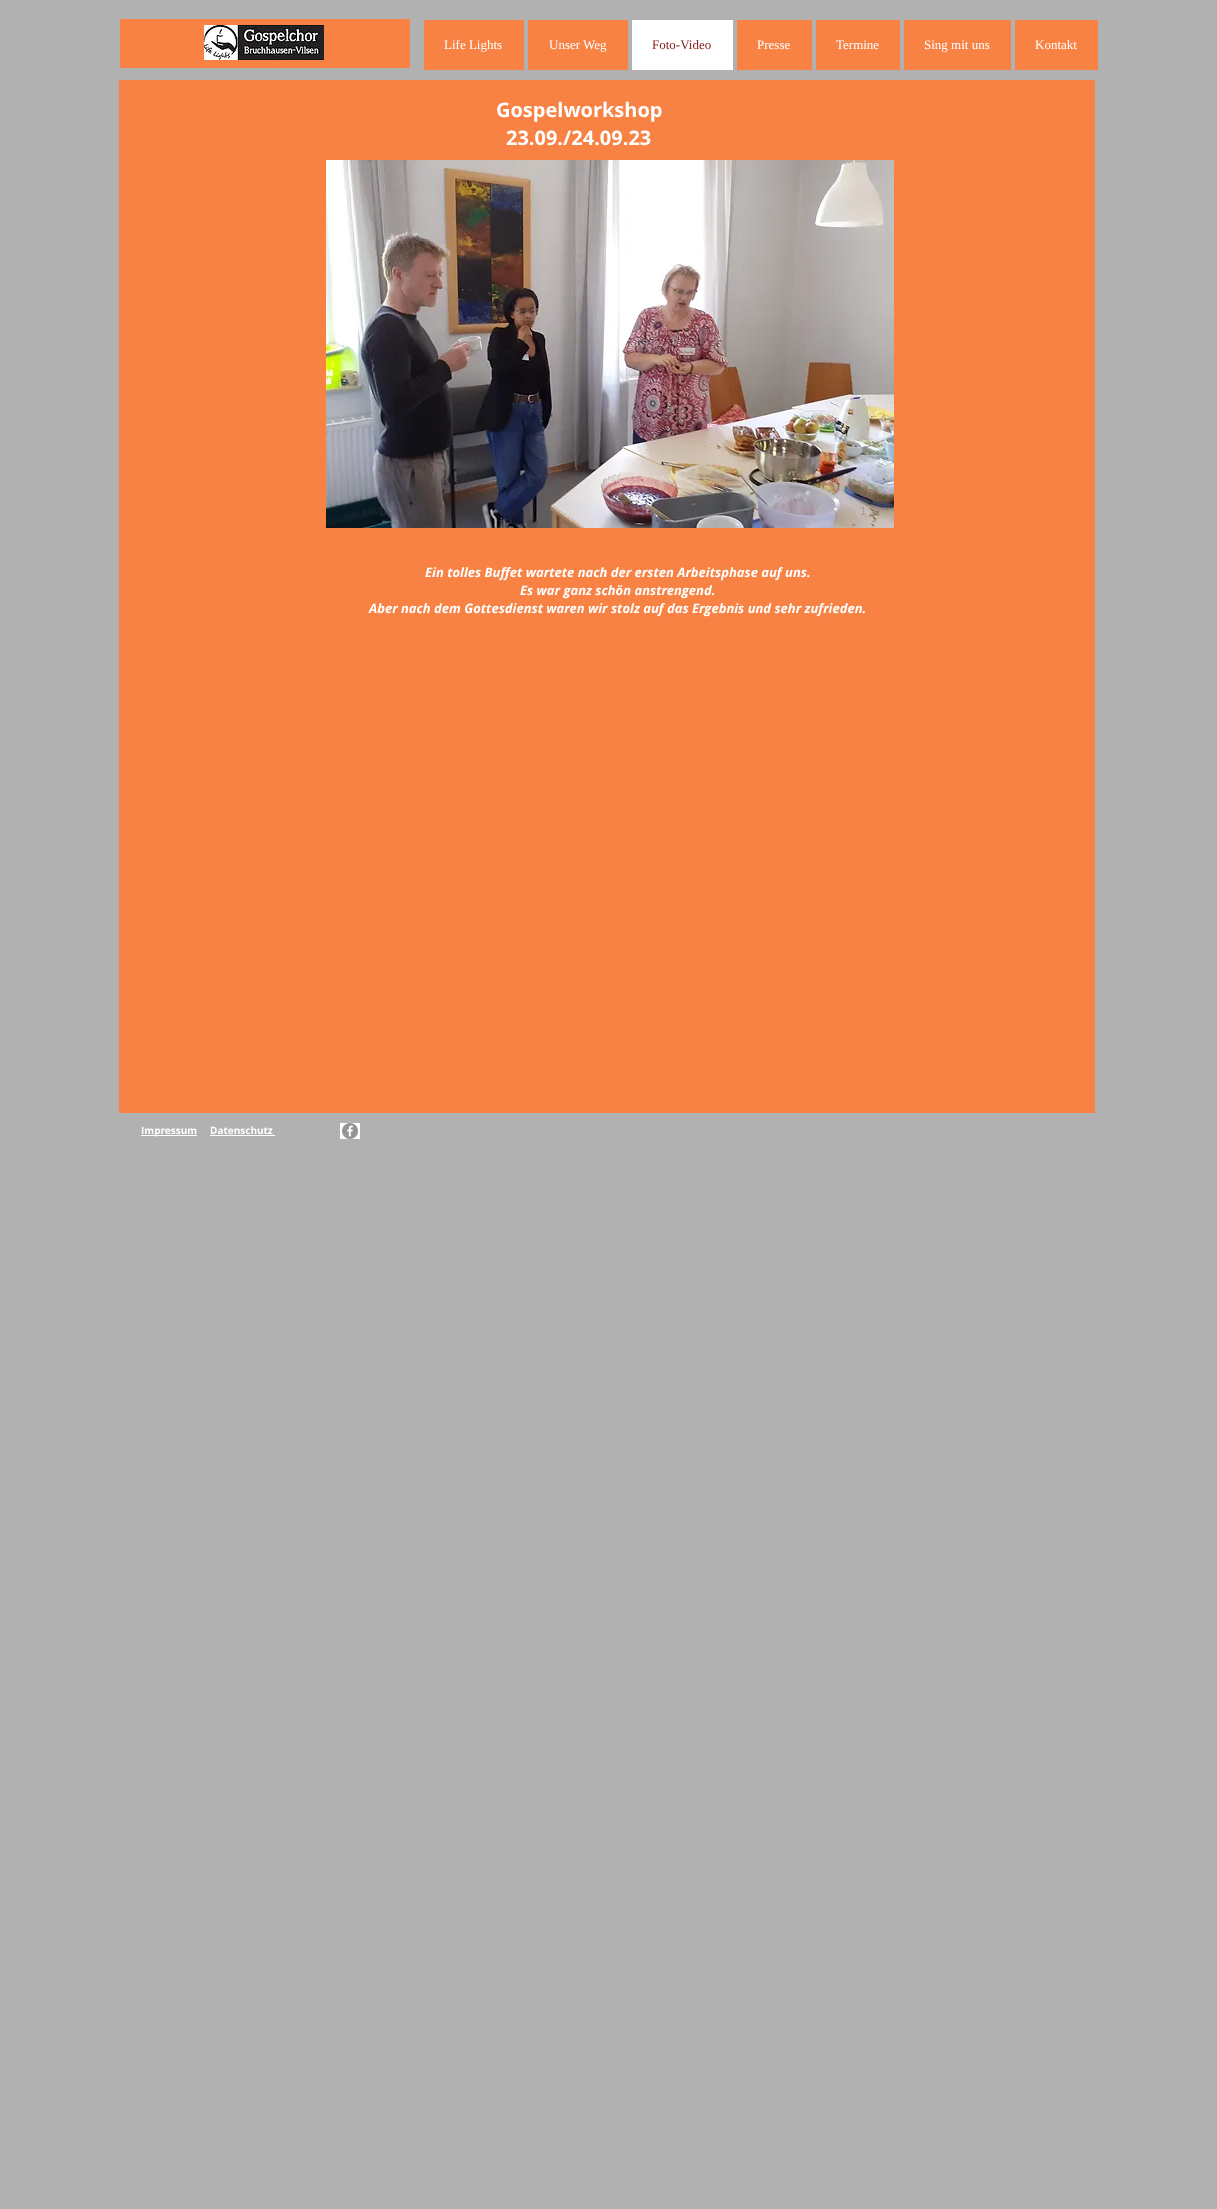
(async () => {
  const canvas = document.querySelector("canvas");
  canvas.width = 1217;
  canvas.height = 2209;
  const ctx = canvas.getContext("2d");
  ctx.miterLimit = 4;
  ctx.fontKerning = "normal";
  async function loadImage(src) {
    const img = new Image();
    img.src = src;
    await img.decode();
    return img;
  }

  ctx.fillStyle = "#b2b1b1";
  ctx.fillRect(0, 0, 1217, 2209);
  ctx.fillStyle = "#f78244";
  ctx.fillRect(120, 19, 290, 49);
  ctx.drawImage(await loadImage("img/1.png"), 204, 25, 120, 35);
  for (const [x, y, w, h, color] of [
    [424, 20, 100, 50, "#f78244"],
    [528, 20, 100, 50, "#f78244"],
    [632, 20, 101, 50, "#ffffff"],
    [737, 20, 75, 50, "#f78244"],
    [816, 20, 84, 50, "#f78244"],
    [904, 20, 107, 50, "#f78244"],
    [1015, 20, 83, 50, "#f78244"],
    [119, 80, 976, 1033, "#f78244"],
  ]) {
    ctx.fillStyle = color;
    ctx.fillRect(x, y, w, h);
  }
  ctx.drawImage(await loadImage("img/2.png"), 326, 160, 568, 368);
  for (const [x, y, w, h, color] of [
    [141, 1135, 56, 1, "#ffffff"],
    [210, 1135, 65, 1, "#ffffff"],
    [340, 1123, 20, 16, "#ffffff"],
  ]) {
    ctx.fillStyle = color;
    ctx.fillRect(x, y, w, h);
  }
  ctx.drawImage(await loadImage("img/3.png"), 342, 1123, 16, 16);
  ctx.font = "13px Liberation Serif";
  ctx.fillText("Life Lights", 444, 49);
  ctx.fillText("Unser Weg", 549, 49);
  ctx.fillStyle = "#891818";
  ctx.fillText("Foto-Video", 652, 49);
  ctx.fillStyle = "#ffffff";
  for (const [text, x, y] of [
    ["Presse", 757, 49],
    ["Termine", 836, 49],
    ["Sing mit uns", 924, 49],
    ["Kontakt", 1035, 49],
  ]) {
    ctx.fillText(text, x, y);
  }
  ctx.font = "bold 20px Open Sans";
  ctx.fillText("Gospelworkshop", 496, 117);
  ctx.fillText("23.09./24.09.23", 506, 145);
  ctx.font = "12px Liberation Sans";
  ctx.fillStyle = "#aa9d94";
  ctx.fillText("1", 860, 515);
  ctx.font = "italic bold 13px Open Sans";
  ctx.fillStyle = "#ffffff";
  for (const [text, x, y] of [
    ["Ein tolles Buffet wartete nach der ersten Arbeitsphase auf uns.", 425, 577],
    ["Es war ganz schön anstrengend.", 520, 595],
    ["Aber nach dem Gottesdienst waren wir stolz auf das Ergebnis und sehr zufrieden.", 369, 613],
  ]) {
    ctx.fillText(text, x, y);
  }
  ctx.font = "bold 10px Open Sans";
  ctx.fillText("Impressum", 141, 1134);
  ctx.fillText("Datenschutz", 210, 1134);
})();
